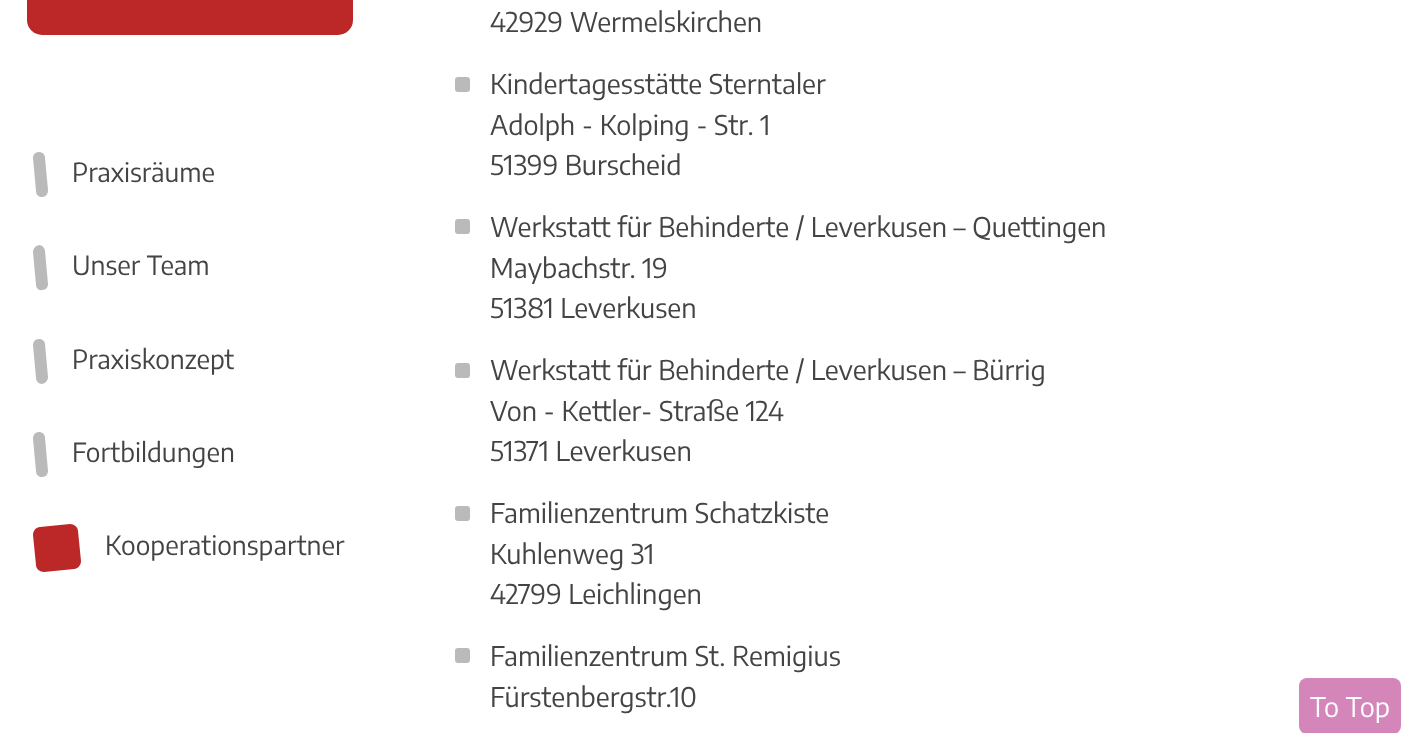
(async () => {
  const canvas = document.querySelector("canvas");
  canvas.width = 1408;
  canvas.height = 733;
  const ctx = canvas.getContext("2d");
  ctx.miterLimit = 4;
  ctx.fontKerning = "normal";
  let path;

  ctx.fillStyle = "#ffffff";
  ctx.fillRect(0, 0, 1408, 733);
  ctx.fillStyle = "#bc2727";
  ctx.beginPath();
  ctx.roundRect(27, -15, 326, 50, 15);
  ctx.fill();
  ctx.fillStyle = "#bababa";
  path = new Path2D("M39 152C42 152 45 154 45 158L48 190C48 194 46 197 42 197C39 197 36 195 36 191L33 158C33 155 35 152 39 152Z");
  ctx.fill(path);
  path = new Path2D("M39 245C42 245 45 248 45 251L48 284C48 287 46 290 42 290C39 291 36 288 36 285L33 252C33 249 35 246 39 245Z");
  ctx.fill(path);
  path = new Path2D("M39 339C42 339 45 341 45 344L48 377C48 380 46 383 42 384C39 384 36 381 36 378L33 345C33 342 35 339 39 339Z");
  ctx.fill(path);
  path = new Path2D("M39 432C42 432 45 434 45 438L48 471C48 474 46 477 42 477C39 477 36 475 36 471L33 439C33 435 35 432 39 432Z");
  ctx.fill(path);
  ctx.fillStyle = "#bc2727";
  path = new Path2D("M40 527L70 524C74 524 78 527 78 531L81 561C81 565 78 569 74 569L44 572C40 572 36 569 36 565L33 535C33 531 36 527 40 527Z");
  ctx.fill(path);
  ctx.fillStyle = "#bababa";
  ctx.beginPath();
  ctx.roundRect(455, 77, 15, 15, 3);
  ctx.fill();
  ctx.beginPath();
  ctx.roundRect(455, 219, 15, 15, 3);
  ctx.fill();
  ctx.beginPath();
  ctx.roundRect(455, 363, 15, 15, 3);
  ctx.fill();
  ctx.beginPath();
  ctx.roundRect(455, 506, 15, 15, 3);
  ctx.fill();
  ctx.beginPath();
  ctx.roundRect(455, 648, 15, 15, 3);
  ctx.fill();
  ctx.fillStyle = "#d486ba";
  ctx.beginPath();
  ctx.roundRect(1299, 678, 102, 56, 8);
  ctx.fill();
  ctx.font = "26.25px Encode Sans";
  ctx.fillStyle = "#444444";
  for (const [text, x, y] of [
    ["Praxisräume", 72, 182],
    ["Unser Team", 72, 275],
    ["Praxiskonzept", 72, 369],
    ["Fortbildungen", 72, 462],
    ["Kooperationspartner", 105, 555],
  ]) {
    ctx.fillText(text, x, y);
  }
  ctx.font = "27px Encode Sans";
  for (const [text, x, y] of [
    ["42929 Wermelskirchen", 490, 32],
    ["Kindertagesstätte Sterntaler", 490, 94],
    ["Adolph - Kolping - Str. 1", 490, 135],
    ["51399 Burscheid", 490, 175],
    ["Werkstatt für Behinderte / Leverkusen – Quettingen", 490, 237],
    ["Maybachstr. 19", 490, 278],
    ["51381 Leverkusen", 490, 318],
    ["Werkstatt für Behinderte / Leverkusen – Bürrig", 490, 380],
    ["Von - Kettler- Straße 124", 490, 421],
    ["51371 Leverkusen", 490, 461],
    ["Familienzentrum Schatzkiste", 490, 523],
    ["Kuhlenweg 31", 490, 564],
    ["42799 Leichlingen", 490, 604],
    ["Familienzentrum St. Remigius", 490, 666],
    ["Fürstenbergstr.10", 490, 707],
  ]) {
    ctx.fillText(text, x, y);
  }
  ctx.fillStyle = "#ffffff";
  ctx.fillText("To Top", 1310, 717);
})();
